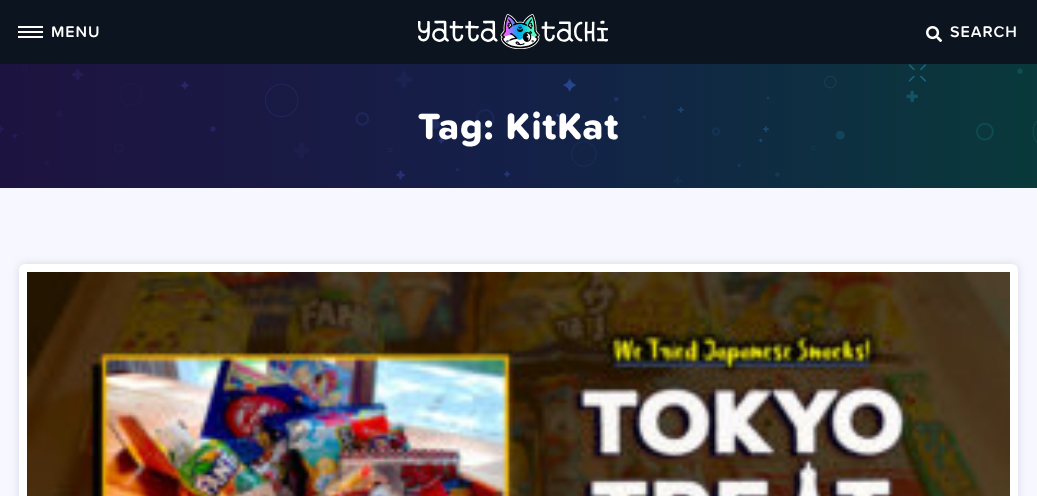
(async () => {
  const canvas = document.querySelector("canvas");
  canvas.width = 1037;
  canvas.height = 496;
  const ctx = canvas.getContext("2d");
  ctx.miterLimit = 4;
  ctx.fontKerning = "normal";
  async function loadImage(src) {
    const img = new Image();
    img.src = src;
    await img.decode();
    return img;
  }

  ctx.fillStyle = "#f7f8ff";
  ctx.fillRect(0, 0, 1037, 496);
  for (const [x, y, w, h, color] of [
    [0, 0, 1037, 64, "#0b141f"],
    [18, 26, 25, 2, "#ffffff"],
    [18, 31, 25, 2, "#ffffff"],
    [18, 36, 25, 2, "#ffffff"],
  ]) {
    ctx.fillStyle = color;
    ctx.fillRect(x, y, w, h);
  }
  ctx.drawImage(await loadImage("img/1.png"), 418, 14, 190, 35);
  ctx.drawImage(await loadImage("img/2.png"), 926, 26, 16, 16);
  ctx.drawImage(await loadImage("img/3.png"), 0, 64, 1037, 124);
  ctx.fillStyle = "rgba(82, 84, 114, 0.2)";
  ctx.filter = "blur(5px)";
  ctx.beginPath();
  ctx.roundRect(19, 264, 999, 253, 6);
  ctx.fill();
  ctx.filter = "none";
  ctx.beginPath();
  ctx.roundRect(23, 268, 991, 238, 2);
  ctx.strokeStyle = "#ffffff";
  ctx.lineWidth = 8;
  ctx.stroke();
  ctx.drawImage(await loadImage("img/4.png"), 27, 272, 983, 224);
  ctx.letterSpacing = "1px";
  ctx.font = "600 16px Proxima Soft";
  ctx.fillStyle = "#ffffff";
  ctx.fillText("MENU", 51, 37);
  ctx.fillText("SEARCH", 950, 37);
  ctx.font = "800 38px Proxima Soft";
  ctx.fillText("Tag: KitKat", 418, 139);
})();
